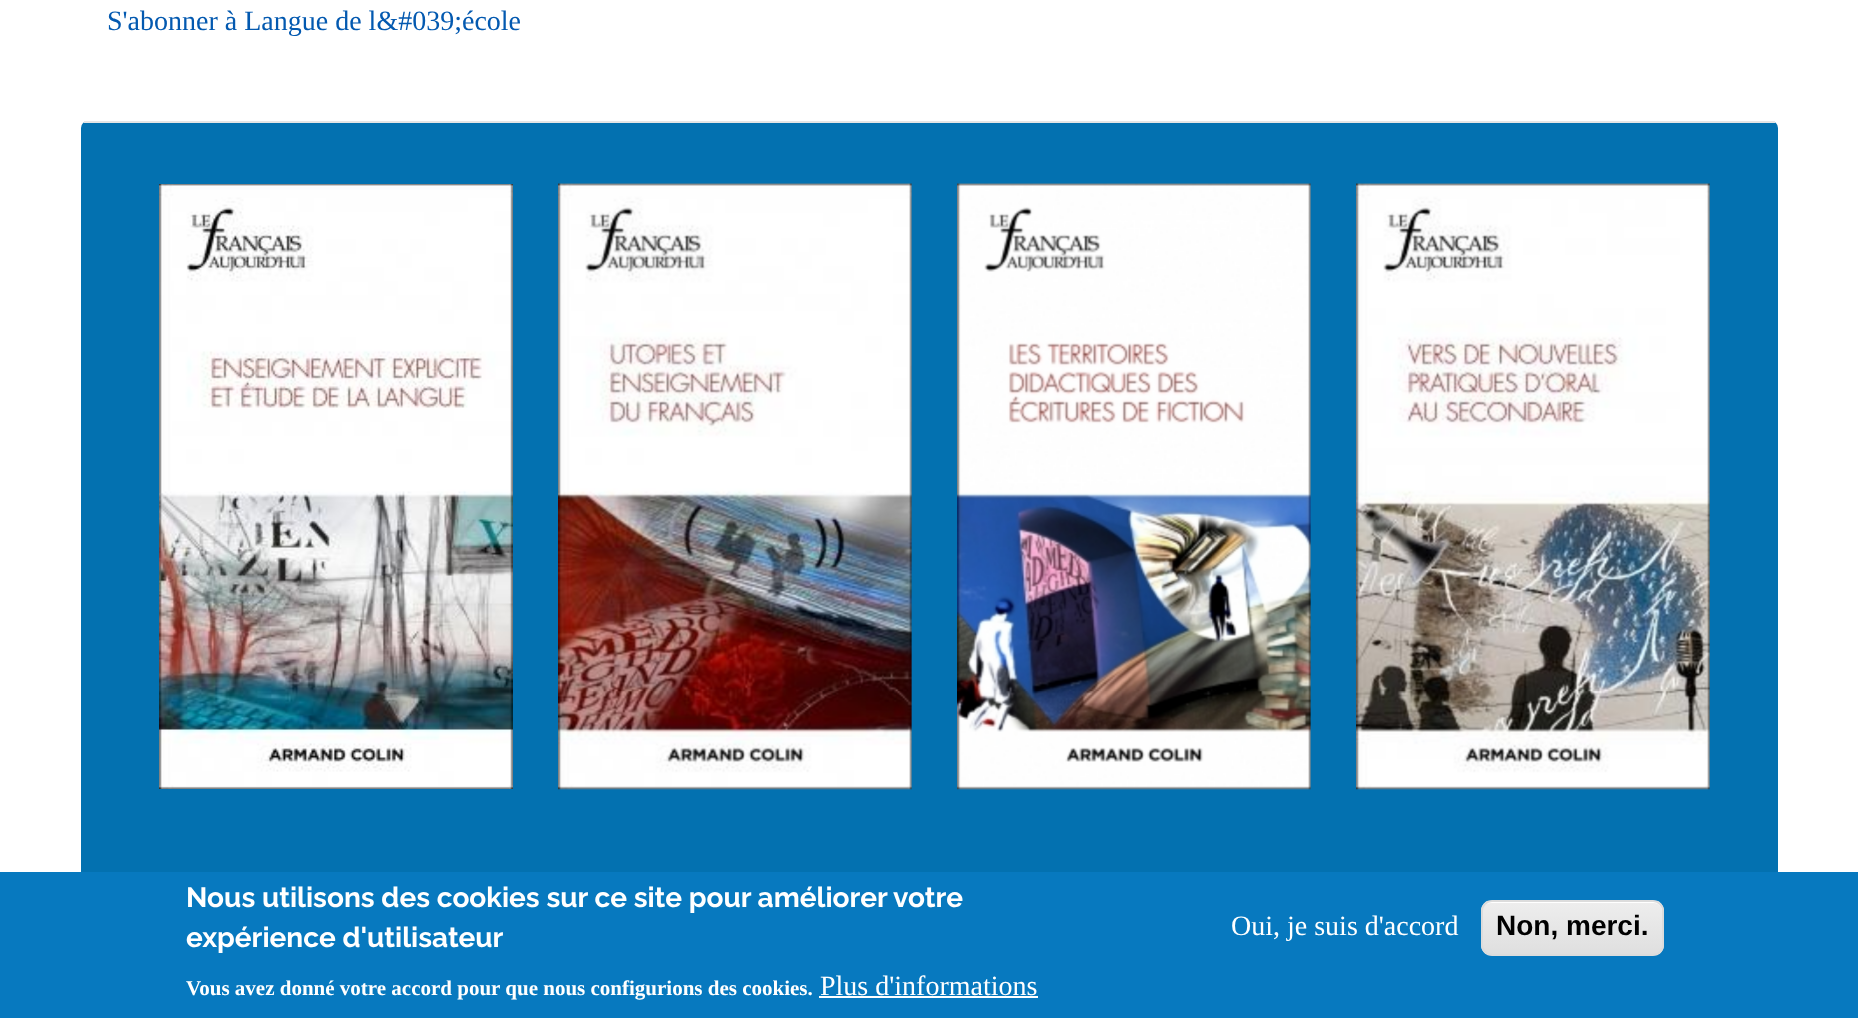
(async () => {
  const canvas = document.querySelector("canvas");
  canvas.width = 1858;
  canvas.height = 1018;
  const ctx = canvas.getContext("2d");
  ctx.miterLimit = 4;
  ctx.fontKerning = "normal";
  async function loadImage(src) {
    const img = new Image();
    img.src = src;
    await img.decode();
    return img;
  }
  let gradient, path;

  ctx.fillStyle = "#ffffff";
  ctx.fillRect(0, 0, 1858, 1018);
  ctx.fillStyle = "#0371b0";
  ctx.beginPath();
  ctx.roundRect(81, 121, 1697, 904, 7);
  ctx.fill();
  ctx.fillStyle = "#e5e5e5";
  ctx.fillRect(84, 121, 1691, 2);
  ctx.drawImage(await loadImage("img/1.png"), 159, 184, 354, 605);
  ctx.drawImage(await loadImage("img/2.png"), 558, 183, 354, 607);
  ctx.drawImage(await loadImage("img/3.png"), 957, 183, 354, 607);
  ctx.drawImage(await loadImage("img/4.png"), 1356, 183, 354, 607);
  ctx.fillStyle = "#0779bf";
  ctx.fillRect(0, 872, 1858, 146);
  ctx.fillStyle = "#ffffff";
  ctx.fillRect(819, 996, 219, 2);
  ctx.save();
  ctx.beginPath();
  ctx.roundRect(1481, 900, 183, 56, 11);
  ctx.clip();
  gradient = ctx.createLinearGradient(1572, 901, 1572, 954);
  gradient.addColorStop(0.05, "#ededed");
  gradient.addColorStop(1, "#dfdfdf");
  ctx.fillStyle = gradient;
  ctx.fillRect(1481, 901, 183, 53);
  ctx.restore();
  path = new Path2D("M1491 903H1654C1659 903 1662 907 1662 912V950C1663 948 1663 947 1663 945V910C1663 905 1659 901 1654 901H1491C1486 901 1482 905 1482 910V912C1482 907 1486 903 1491 903Z");
  ctx.fill(path);
  ctx.beginPath();
  ctx.roundRect(1482, 901, 181, 54, 10);
  ctx.strokeStyle = "#dcdcdc";
  ctx.lineWidth = 2;
  ctx.stroke();
  ctx.font = "28px Liberation Serif";
  ctx.fillStyle = "#0359b0";
  ctx.fillText("S'abonner à Langue de l&#039;école", 107, 30);
  ctx.font = "bold 28px Raleway";
  ctx.fillStyle = "#ffffff";
  ctx.fillText("Nous utilisons des cookies sur ce site pour améliorer votre", 186, 907);
  ctx.fillText("expérience d'utilisateur", 186, 947);
  ctx.font = "bold 21px Liberation Serif";
  ctx.fillText("Vous avez donné votre accord pour que nous configurions des cookies.", 186, 995);
  ctx.font = "28px Liberation Serif";
  ctx.fillText("Plus d'informations", 820, 995);
  ctx.fillText("Oui, je suis d'accord", 1231, 935);
  ctx.font = "bold 28px Liberation Sans";
  ctx.fillStyle = "#000000";
  ctx.fillText("Non, merci.", 1496, 935);
})();
